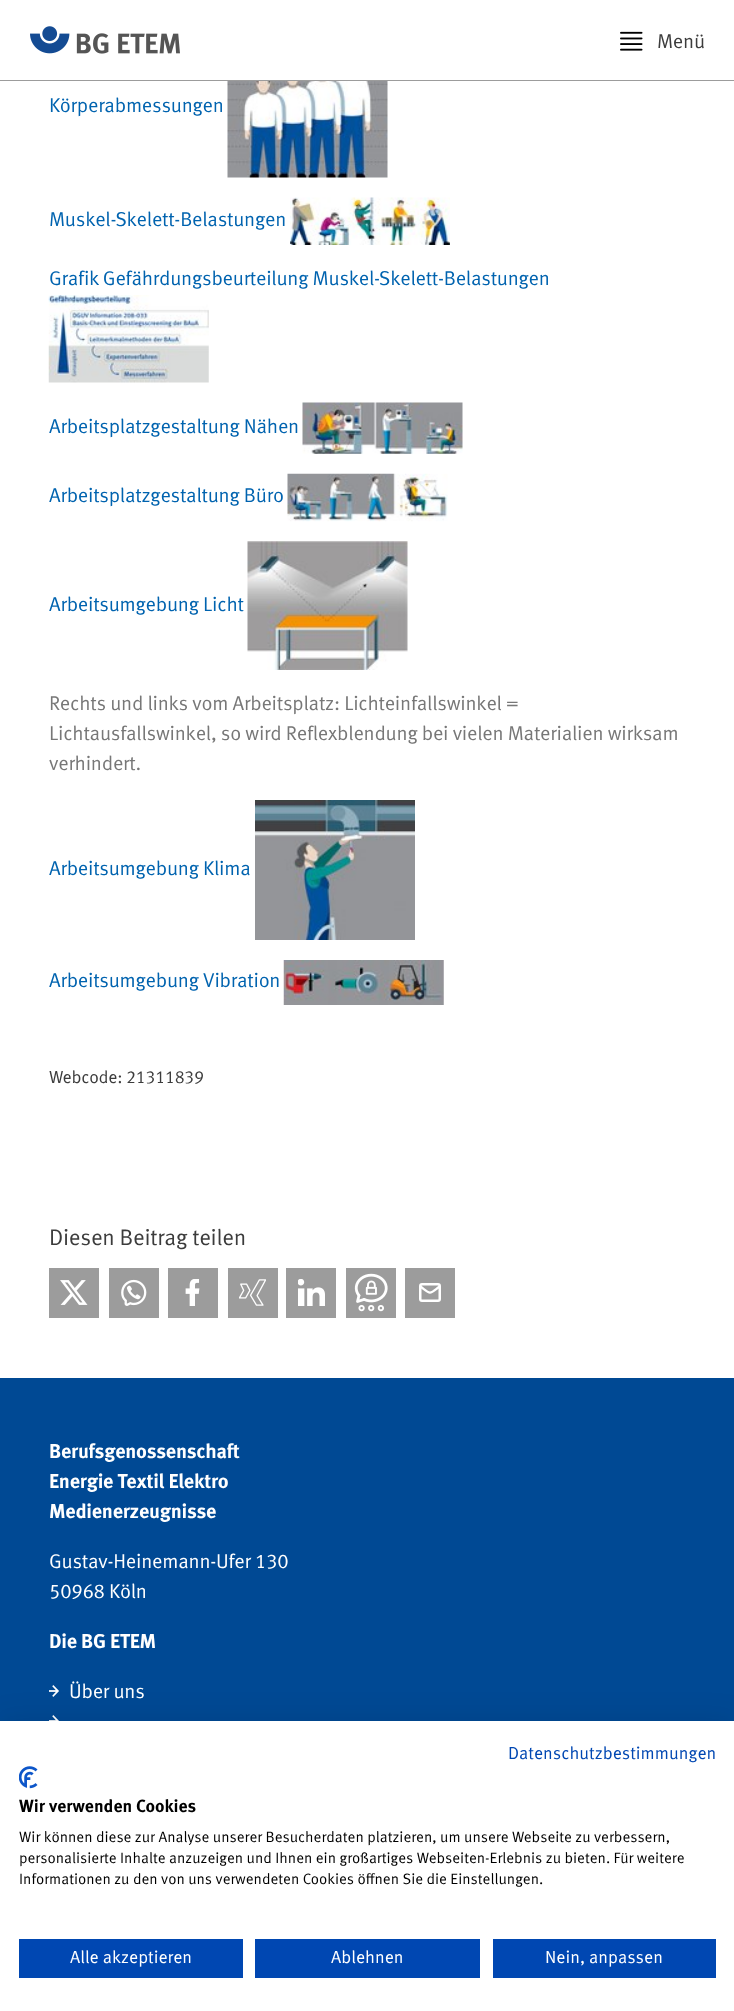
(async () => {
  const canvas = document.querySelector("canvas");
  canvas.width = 734;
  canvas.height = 2011;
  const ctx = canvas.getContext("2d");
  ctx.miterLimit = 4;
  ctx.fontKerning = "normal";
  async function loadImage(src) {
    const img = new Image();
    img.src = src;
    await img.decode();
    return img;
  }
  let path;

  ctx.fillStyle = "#ffffff";
  ctx.fillRect(0, 0, 734, 2011);
  ctx.fillStyle = "#9c9c9c";
  ctx.fillRect(0, 80, 734, 1);
  ctx.drawImage(await loadImage("img/1.png"), 30, 26, 150, 28);
  ctx.drawImage(await loadImage("img/2.png"), 620, 31, 23, 20);
  ctx.drawImage(await loadImage("img/3.png"), 227, 81, 161, 97);
  ctx.drawImage(await loadImage("img/4.png"), 290, 197, 160, 48);
  ctx.drawImage(await loadImage("img/5.png"), 48, 295, 161, 88);
  ctx.drawImage(await loadImage("img/6.png"), 302, 402, 161, 52);
  ctx.drawImage(await loadImage("img/7.png"), 287, 473, 161, 49);
  ctx.drawImage(await loadImage("img/8.png"), 247, 541, 161, 129);
  ctx.drawImage(await loadImage("img/9.png"), 255, 800, 160, 140);
  ctx.drawImage(await loadImage("img/10.png"), 283, 960, 161, 45);
  ctx.fillRect(49, 1268, 50, 50);
  ctx.drawImage(await loadImage("img/11.png"), 60, 1280, 28, 25);
  ctx.fillRect(109, 1268, 50, 50);
  ctx.drawImage(await loadImage("img/12.png"), 121, 1279, 26, 27);
  ctx.fillRect(168, 1268, 50, 50);
  ctx.drawImage(await loadImage("img/13.png"), 185, 1279, 15, 27);
  ctx.fillRect(228, 1268, 50, 50);
  ctx.drawImage(await loadImage("img/14.png"), 239, 1279, 27, 27);
  ctx.fillRect(286, 1268, 50, 50);
  ctx.drawImage(await loadImage("img/15.png"), 298, 1279, 27, 27);
  ctx.fillRect(346, 1268, 50, 50);
  ctx.drawImage(await loadImage("img/16.png"), 354, 1273, 34, 39);
  ctx.fillRect(405, 1268, 50, 50);
  path = new Path2D("M421 1287C431 1294.5 429 1294.5 439 1287");
  ctx.strokeStyle = "#ffffff";
  ctx.lineWidth = 2.3;
  ctx.lineCap = "round";
  ctx.lineJoin = "round";
  ctx.stroke(path);
  ctx.beginPath();
  ctx.roundRect(420.25, 1284.25, 19.5, 16.5, 1.75);
  ctx.lineWidth = 2.5;
  ctx.lineJoin = "miter";
  ctx.stroke();
  ctx.fillStyle = "#004994";
  ctx.fillRect(0, 1378, 734, 343);
  ctx.drawImage(await loadImage("img/17.png"), 49, 1685, 10, 12);
  ctx.drawImage(await loadImage("img/18.png"), 49, 1715, 10, 6);
  ctx.fillStyle = "rgba(0, 0, 0, 0.1)";
  ctx.filter = "blur(15px)";
  ctx.beginPath();
  ctx.rect(0, 1721, 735, 290);
  ctx.fill();
  ctx.filter = "none";
  ctx.fillStyle = "#ffffff";
  ctx.fillRect(0, 1721, 734, 290);
  ctx.drawImage(await loadImage("img/19.png"), 19, 1766, 19, 23);
  for (const [x, y, w, h, color] of [
    [19, 1939, 224, 39, "#0047b2"],
    [255, 1939, 225, 39, "#0047b2"],
    [493, 1939, 223, 39, "#0047b2"],
  ]) {
    ctx.fillStyle = color;
    ctx.fillRect(x, y, w, h);
  }
  ctx.letterSpacing = "-0.25px";
  ctx.font = "20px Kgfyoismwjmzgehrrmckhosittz";
  ctx.fillStyle = "#3c3c3c";
  ctx.fillText("Menü", 657, 48);
  ctx.fillStyle = "#0063af";
  for (const [text, x, y] of [
    ["Körperabmessungen", 49, 112],
    ["Muskel-Skelett-Belastungen", 49, 226],
    ["Grafik Gefährdungsbeurteilung Muskel-Skelett-Belastungen", 49, 285],
    ["Arbeitsplatzgestaltung Nähen", 49, 433],
    ["Arbeitsplatzgestaltung Büro", 49, 502],
    ["Arbeitsumgebung Licht", 49, 611],
  ]) {
    ctx.fillText(text, x, y);
  }
  ctx.fillStyle = "#777777";
  for (const [text, x, y] of [
    ["Rechts und links vom Arbeitsplatz: Lichteinfallswinkel =", 49, 710],
    ["Lichtausfallswinkel, so wird Reflexblendung bei vielen Materialien wirksam", 49, 740],
    ["verhindert.", 49, 770],
  ]) {
    ctx.fillText(text, x, y);
  }
  ctx.fillStyle = "#0063af";
  ctx.fillText("Arbeitsumgebung Klima", 49, 875);
  ctx.fillText("Arbeitsumgebung Vibration", 49, 987);
  ctx.font = "17.5px Kgfyoismwjmzgehrrmckhosittz";
  ctx.fillStyle = "#3c3c3c";
  ctx.fillText("Webcode: 21311839", 49, 1083);
  ctx.font = "22.5px Kgfyoismwjmzgehrrmckhosittz";
  ctx.fillText("Diesen Beitrag teilen", 49, 1245);
  ctx.font = "bold 20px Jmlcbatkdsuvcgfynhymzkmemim";
  ctx.fillStyle = "#ffffff";
  for (const [text, x, y] of [
    ["Berufsgenossenschaft", 49, 1458],
    ["Energie Textil Elektro", 49, 1488],
    ["Medienerzeugnisse", 49, 1518],
  ]) {
    ctx.fillText(text, x, y);
  }
  ctx.font = "20px Kgfyoismwjmzgehrrmckhosittz";
  ctx.fillText("Gustav-Heinemann-Ufer 130", 49, 1568);
  ctx.fillText("50968 Köln", 49, 1598);
  ctx.font = "bold 20px Jmlcbatkdsuvcgfynhymzkmemim";
  ctx.fillText("Die BG ETEM", 49, 1648);
  ctx.font = "20px Kgfyoismwjmzgehrrmckhosittz";
  ctx.fillText("Über uns", 69, 1698);
  ctx.letterSpacing = "0px";
  ctx.font = "17.5px Kgfyoismwjmzgehrrmckhosittz";
  ctx.fillStyle = "#0047b2";
  ctx.fillText("Datenschutzbestimmungen", 508, 1759);
  ctx.font = "bold 17.5px Jmlcbatkdsuvcgfynhymzkmemim";
  ctx.fillStyle = "#000000";
  ctx.fillText("Wir verwenden Cookies", 19, 1812);
  ctx.font = "15px Kgfyoismwjmzgehrrmckhosittz";
  for (const [text, x, y] of [
    ["Wir können diese zur Analyse unserer Besucherdaten platzieren, um unsere Webseite zu verbessern,", 19, 1842],
    ["personalisierte Inhalte anzuzeigen und Ihnen ein großartiges Webseiten-Erlebnis zu bieten. Für weitere", 19, 1863],
    ["Informationen zu den von uns verwendeten Cookies öffnen Sie die Einstellungen.", 19, 1884],
  ]) {
    ctx.fillText(text, x, y);
  }
  ctx.font = "17.5px Kgfyoismwjmzgehrrmckhosittz";
  ctx.fillStyle = "#ffffff";
  for (const [text, x, y] of [
    ["Alle akzeptieren", 70, 1963],
    ["Ablehnen", 331, 1963],
    ["Nein, anpassen", 545, 1963],
  ]) {
    ctx.fillText(text, x, y);
  }
})();
